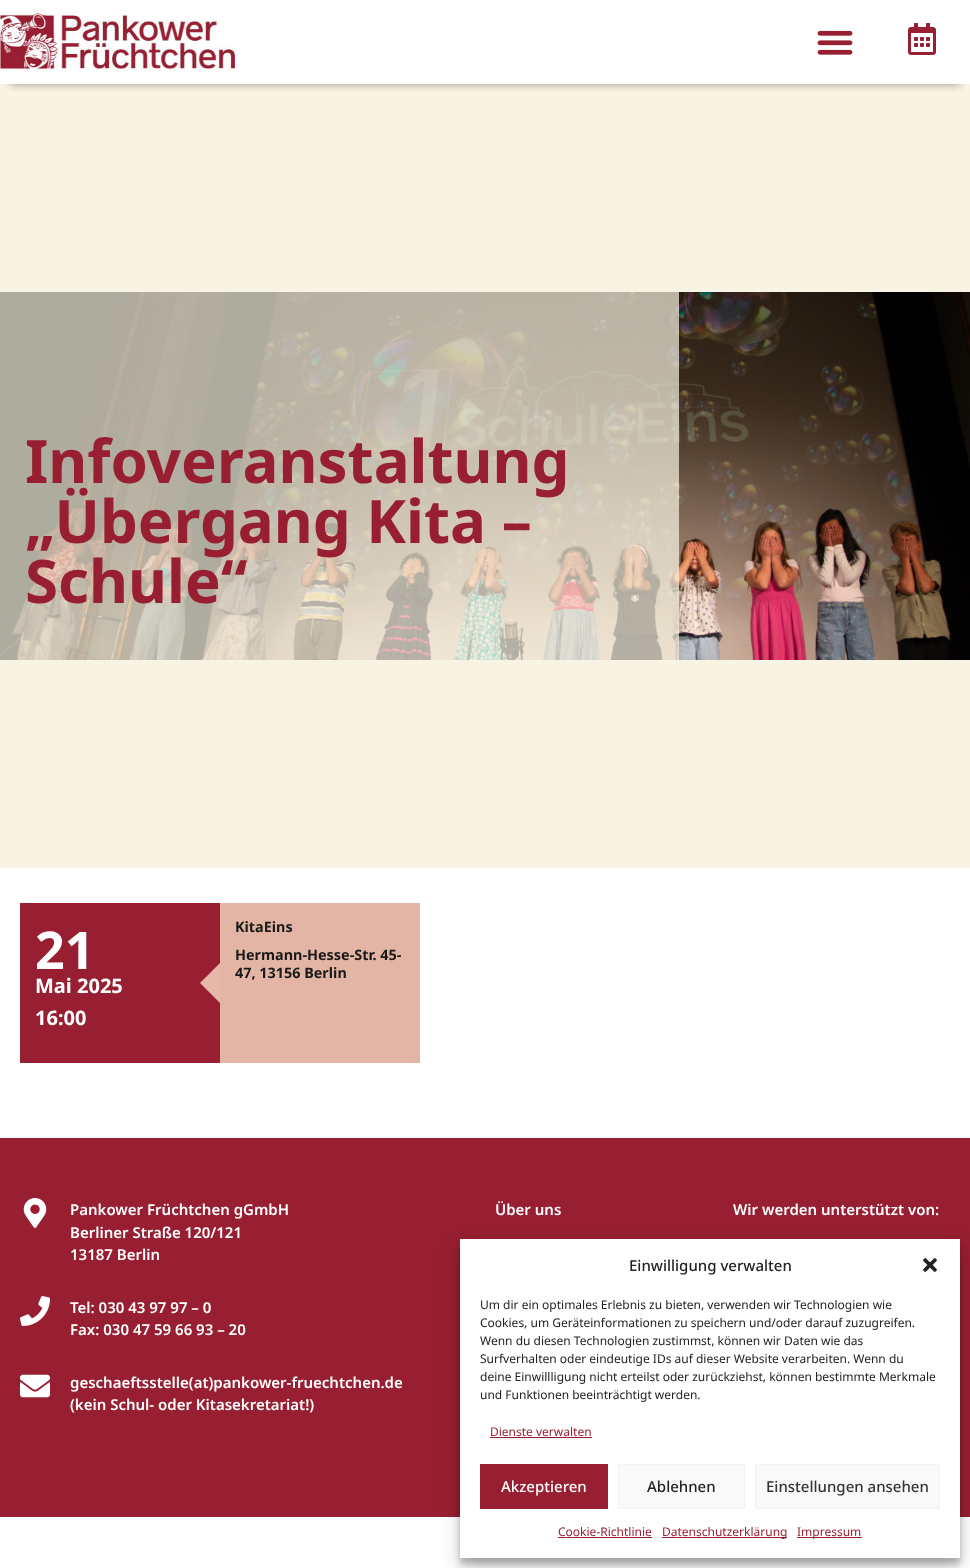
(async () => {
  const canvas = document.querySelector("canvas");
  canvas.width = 970;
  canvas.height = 1568;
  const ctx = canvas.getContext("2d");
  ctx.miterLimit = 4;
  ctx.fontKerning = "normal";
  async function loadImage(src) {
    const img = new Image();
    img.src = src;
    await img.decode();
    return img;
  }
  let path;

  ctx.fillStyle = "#ffffff";
  ctx.fillRect(0, 0, 970, 1568);
  ctx.fillStyle = "#f8f4e3";
  ctx.fillRect(0, 84, 970, 784);
  ctx.save();
  ctx.beginPath();
  ctx.rect(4, 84, 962, 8);
  ctx.clip();
  ctx.fillStyle = "rgba(0, 0, 0, 0.4)";
  ctx.filter = "blur(5px)";
  ctx.beginPath();
  ctx.rect(10, 20, 950, 64);
  ctx.fill();
  ctx.filter = "none";
  ctx.restore();
  ctx.drawImage(await loadImage("img/1.png"), 0, 10, 237, 62);
  ctx.drawImage(await loadImage("img/2.png"), 817, 30, 36, 25);
  ctx.drawImage(await loadImage("img/3.png"), 908, 23, 28, 32);
  ctx.drawImage(await loadImage("img/4.png"), 0, 292, 970, 368);
  for (const [x, y, w, h, color] of [
    [0, 292, 679, 368, "rgba(248, 244, 227, 0.7)"],
    [20, 903, 200, 160, "#981f32"],
    [220, 903, 200, 160, "#e3b5a4"],
  ]) {
    ctx.fillStyle = color;
    ctx.fillRect(x, y, w, h);
  }
  ctx.fillStyle = "#e5b9aa";
  path = new Path2D("M220 963V1003L200 983Z");
  ctx.fill(path);
  ctx.fillStyle = "#981f32";
  ctx.fillRect(0, 1138, 970, 379);
  ctx.drawImage(await loadImage("img/5.png"), 23, 1198, 24, 30);
  ctx.drawImage(await loadImage("img/6.png"), 20, 1296, 30, 30);
  ctx.drawImage(await loadImage("img/7.png"), 20, 1374, 30, 24);
  ctx.fillStyle = "rgba(0, 0, 0, 0.23)";
  ctx.filter = "blur(3px)";
  ctx.beginPath();
  ctx.rect(460, 1245, 500, 319);
  ctx.fill();
  ctx.filter = "none";
  ctx.fillStyle = "rgba(0, 0, 0, 0.19)";
  ctx.filter = "blur(10px)";
  ctx.beginPath();
  ctx.rect(460, 1249, 500, 319);
  ctx.fill();
  ctx.filter = "none";
  ctx.fillStyle = "#ffffff";
  ctx.fillRect(460, 1239, 500, 319);
  ctx.drawImage(await loadImage("img/8.png"), 923, 1258, 14, 14);
  ctx.fillStyle = "#981f32";
  ctx.fillRect(490, 1437, 102, 1);
  ctx.fillRect(480, 1464, 128, 45);
  ctx.fillStyle = "#f9f9f9";
  ctx.beginPath();
  ctx.rect(618.5, 1464.5, 126, 44);
  ctx.fill();
  ctx.strokeStyle = "#f2f2f2";
  ctx.stroke();
  ctx.beginPath();
  ctx.rect(755.5, 1464.5, 184, 44);
  ctx.fill();
  ctx.stroke();
  for (const [x, y, w, h, color] of [
    [558, 1537, 94, 1, "#981f32"],
    [662, 1537, 125, 1, "#981f32"],
    [797, 1537, 65, 1, "#981f32"],
  ]) {
    ctx.fillStyle = color;
    ctx.fillRect(x, y, w, h);
  }
  ctx.font = "bold 60px Noto Sans";
  for (const [text, x, y] of [
    ["Infoveranstaltung", 25, 483],
    ["„Übergang Kita –", 25, 543],
    ["Schule“", 25, 603],
  ]) {
    ctx.fillText(text, x, y);
  }
  ctx.font = "bold 52px Noto Sans";
  ctx.fillStyle = "#ffffff";
  ctx.fillText("21", 35, 969);
  ctx.font = "bold 20px Noto Sans";
  ctx.fillText("Mai 2025", 35, 993);
  ctx.fillText("16:00", 35, 1025);
  ctx.font = "bold 14.4px Noto Sans";
  ctx.fillStyle = "#1a1a1a";
  for (const [text, x, y] of [
    ["KitaEins", 235, 932],
    ["Hermann-Hesse-Str. 45-", 235, 960],
    ["47, 13156 Berlin", 235, 978],
  ]) {
    ctx.fillText(text, x, y);
  }
  ctx.font = "600 15px Noto Sans";
  ctx.fillStyle = "#ffffff";
  for (const [text, x, y] of [
    ["Pankower Früchtchen gGmbH", 70, 1215],
    ["Berliner Straße 120/121", 70, 1238],
    ["13187 Berlin", 70, 1260],
    ["Tel: 030 43 97 97 – 0", 70, 1313],
    ["Fax: 030 47 59 66 93 – 20", 70, 1335],
    ["geschaeftsstelle(at)pankower-fruechtchen.de", 70, 1388],
    ["(kein Schul- oder Kitasekretariat!)", 70, 1410],
    ["Über uns", 495, 1215],
    ["Wir werden unterstützt von:", 733, 1215],
  ]) {
    ctx.fillText(text, x, y);
  }
  ctx.font = "500 15px Noto Sans";
  ctx.fillStyle = "#222222";
  ctx.fillText("Einwilligung verwalten", 629, 1271);
  ctx.font = "12px Noto Sans";
  for (const [text, x, y] of [
    ["Um dir ein optimales Erlebnis zu bieten, verwenden wir Technologien wie", 480, 1309],
    ["Cookies, um Geräteinformationen zu speichern und/oder darauf zuzugreifen.", 480, 1327],
    ["Wenn du diesen Technologien zustimmst, können wir Daten wie das", 480, 1345],
    ["Surfverhalten oder eindeutige IDs auf dieser Website verarbeiten. Wenn du", 480, 1363],
    ["deine Einwillligung nicht erteilst oder zurückziehst, können bestimmte Merkmale", 480, 1381],
    ["und Funktionen beeinträchtigt werden.", 480, 1399],
  ]) {
    ctx.fillText(text, x, y);
  }
  ctx.fillStyle = "#981f32";
  ctx.fillText("Dienste verwalten", 490, 1436);
  ctx.font = "500 15px Noto Sans";
  ctx.fillStyle = "#ffffff";
  ctx.fillText("Akzeptieren", 501, 1492);
  ctx.fillStyle = "#222222";
  ctx.fillText("Ablehnen", 647, 1492);
  ctx.fillStyle = "#333333";
  ctx.fillText("Einstellungen ansehen", 766, 1492);
  ctx.font = "12px Noto Sans";
  ctx.fillStyle = "#981f32";
  for (const [text, x, y] of [
    ["Cookie-Richtlinie", 558, 1536],
    ["Datenschutzerklärung", 662, 1536],
    ["Impressum", 797, 1536],
  ]) {
    ctx.fillText(text, x, y);
  }
})();
